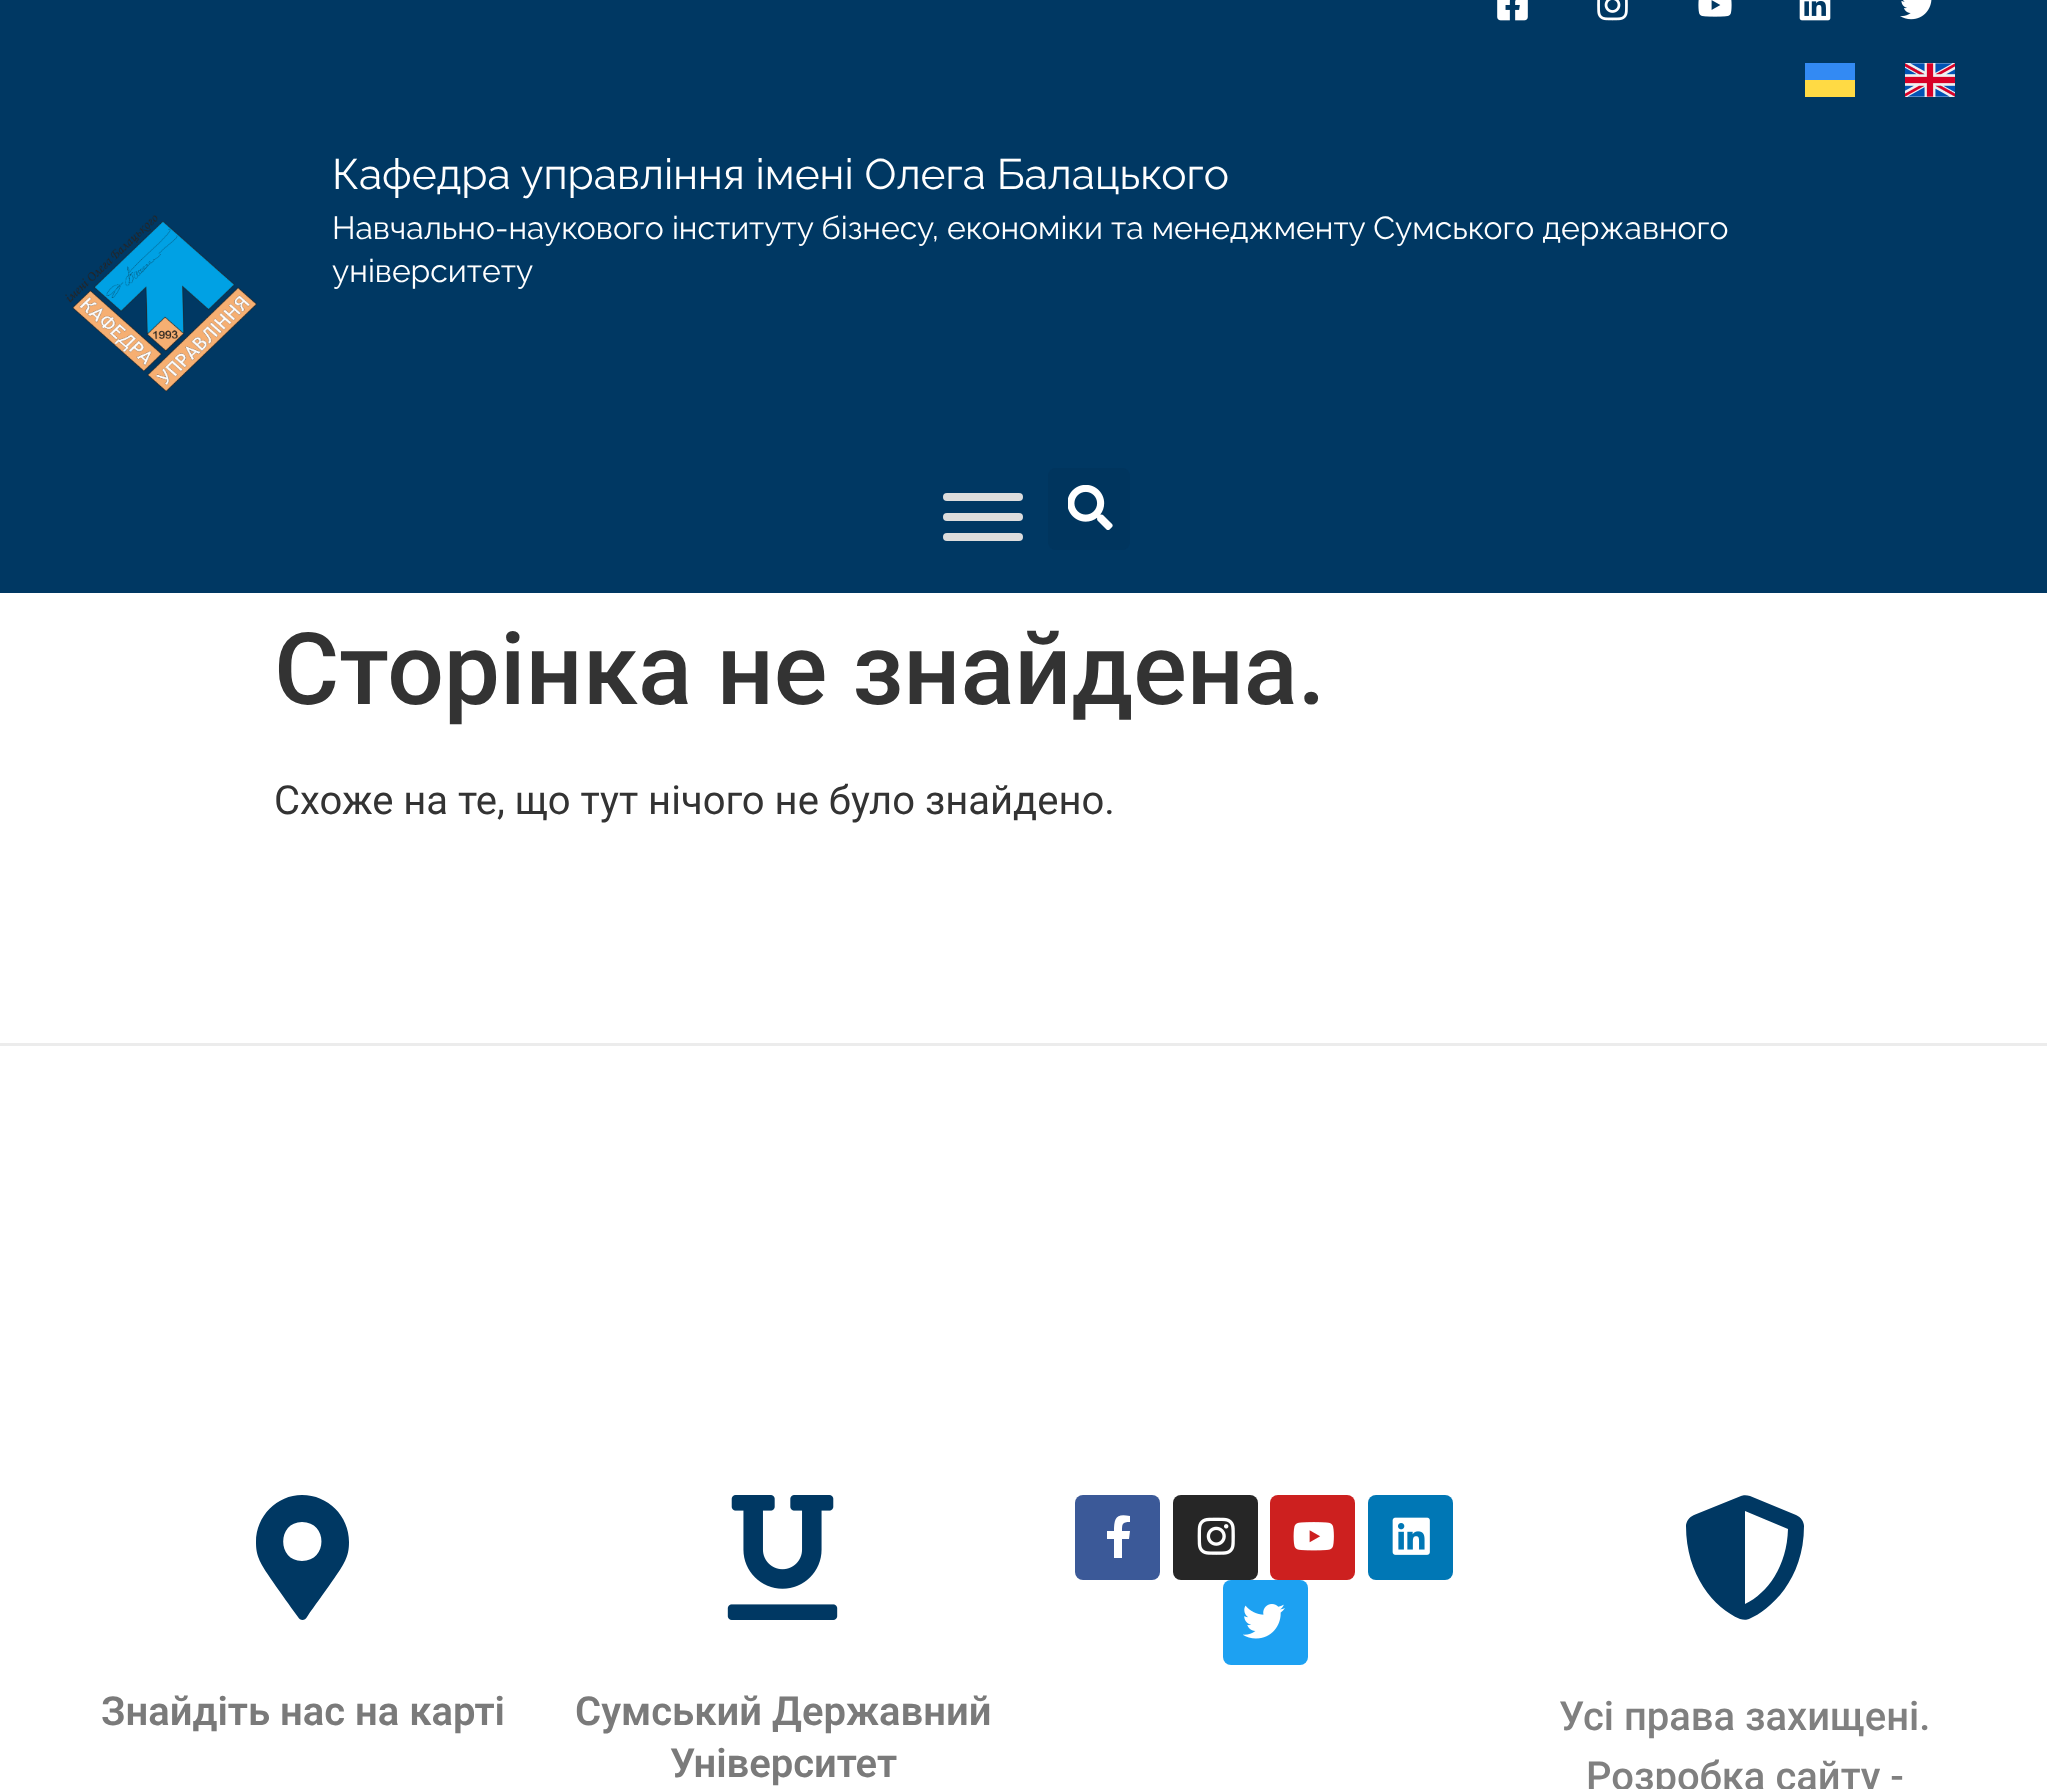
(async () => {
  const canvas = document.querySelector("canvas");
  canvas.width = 2047;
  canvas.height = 1789;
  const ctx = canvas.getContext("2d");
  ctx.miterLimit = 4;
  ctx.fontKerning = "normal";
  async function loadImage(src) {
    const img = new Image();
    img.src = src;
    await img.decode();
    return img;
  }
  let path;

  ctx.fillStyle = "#ffffff";
  ctx.fillRect(0, 0, 2047, 1789);
  ctx.fillStyle = "#003863";
  ctx.fillRect(0, 0, 2047, 593);
  ctx.drawImage(await loadImage("img/1.png"), 1497, 0, 31, 21);
  ctx.drawImage(await loadImage("img/2.png"), 1597, 0, 31, 21);
  ctx.drawImage(await loadImage("img/3.png"), 1698, 0, 34, 17);
  ctx.drawImage(await loadImage("img/4.png"), 1799, 0, 32, 21);
  ctx.drawImage(await loadImage("img/5.png"), 1900, 0, 32, 20);
  ctx.fillStyle = "#338af3";
  ctx.fillRect(1805, 63, 50, 17);
  ctx.fillStyle = "#ffda44";
  ctx.fillRect(1805, 80, 50, 17);
  ctx.drawImage(await loadImage("img/6.png"), 1905, 63, 50, 34);
  ctx.drawImage(await loadImage("img/7.png"), 65, 215, 192, 177);
  ctx.fillStyle = "#dddddd";
  ctx.beginPath();
  ctx.roundRect(943, 493, 80, 8, 4);
  ctx.fill();
  ctx.beginPath();
  ctx.roundRect(943, 513, 80, 8, 4);
  ctx.fill();
  ctx.beginPath();
  ctx.roundRect(943, 533, 80, 8, 4);
  ctx.fill();
  ctx.fillStyle = "#00355e";
  ctx.beginPath();
  ctx.roundRect(1048, 468, 82, 82, 8);
  ctx.fill();
  ctx.drawImage(await loadImage("img/8.png"), 1068, 485, 45, 45);
  ctx.fillStyle = "#ececec";
  ctx.fillRect(0, 1043, 2047, 3);
  ctx.fillStyle = "#3b5998";
  ctx.beginPath();
  ctx.roundRect(1075, 1495, 85, 85, 8);
  ctx.fill();
  ctx.fillStyle = "#ffffff";
  path = new Path2D("M1129 1539L1130 1531H1122C1122 1524 1122 1522 1130 1522V1516C1116 1513 1114 1518 1114 1531H1107V1539H1114V1558H1122V1539Z");
  ctx.fill(path);
  ctx.fillStyle = "#262626";
  ctx.beginPath();
  ctx.roundRect(1173, 1495, 85, 85, 8);
  ctx.fill();
  ctx.drawImage(await loadImage("img/9.png"), 1197, 1517, 38, 38);
  ctx.fillStyle = "#cd201f";
  ctx.beginPath();
  ctx.roundRect(1270, 1495, 85, 85, 8);
  ctx.fill();
  ctx.drawImage(await loadImage("img/10.png"), 1293, 1522, 41, 29);
  ctx.fillStyle = "#0077b5";
  ctx.beginPath();
  ctx.roundRect(1368, 1495, 85, 85, 8);
  ctx.fill();
  ctx.drawImage(await loadImage("img/11.png"), 1392, 1517, 38, 38);
  ctx.fillStyle = "#1da1f2";
  ctx.beginPath();
  ctx.roundRect(1223, 1580, 85, 85, 8);
  ctx.fill();
  ctx.drawImage(await loadImage("img/12.png"), 1243, 1604, 42, 35);
  ctx.fillStyle = "#003863";
  path = new Path2D("M298 1617C262 1566 256 1561 256 1542C256 1516 277 1495 302 1495C328 1495 349 1516 349 1542C349 1561 343 1566 307 1617C305 1621 300 1621 298 1617ZM302 1561C328 1561 328 1522 302 1522C277 1522 277 1561 302 1561Z");
  ctx.fill(path);
  ctx.drawImage(await loadImage("img/13.png"), 727, 1495, 111, 125);
  path = new Path2D("M1796 1515L1750 1496C1747 1495 1743 1495 1741 1496L1694 1515C1689 1517 1686 1522 1686 1526C1686 1575 1714 1608 1740 1619C1743 1620 1747 1620 1749 1619C1770 1610 1804 1580 1804 1526C1804 1522 1801 1517 1796 1515ZM1745 1604V1511L1788 1529C1787 1566 1768 1593 1745 1604Z");
  ctx.fill(path);
  ctx.font = "42.5px Raleway";
  ctx.fillStyle = "#ffffff";
  ctx.fillText("Кафедра управління імені Олега Балацького", 332, 189);
  ctx.font = "31.9px Raleway";
  ctx.fillText("Навчально-наукового інституту бізнесу, економіки та менеджменту Сумського державного", 332, 239);
  ctx.fillText("університету", 332, 282);
  ctx.font = "500 100px Roboto";
  ctx.fillStyle = "#333333";
  ctx.fillText("Сторінка не знайдена.", 274, 704);
  ctx.font = "40px Roboto";
  ctx.fillText("Схоже на те, що тут нічого не було знайдено.", 274, 814);
  ctx.font = "600 40px Roboto";
  ctx.fillStyle = "#7a7a7a";
  for (const [text, x, y] of [
    ["Знайдіть нас на карті", 101, 1725],
    ["Сумський Державний", 575, 1725],
    ["Університет", 670, 1777],
  ]) {
    ctx.fillText(text, x, y);
  }
  ctx.font = "500 40px Roboto";
  ctx.fillStyle = "#808080";
  ctx.fillText("Усi права захищенi.", 1559, 1730);
  ctx.fillText("Розробка сайту -", 1586, 1790);
})();
